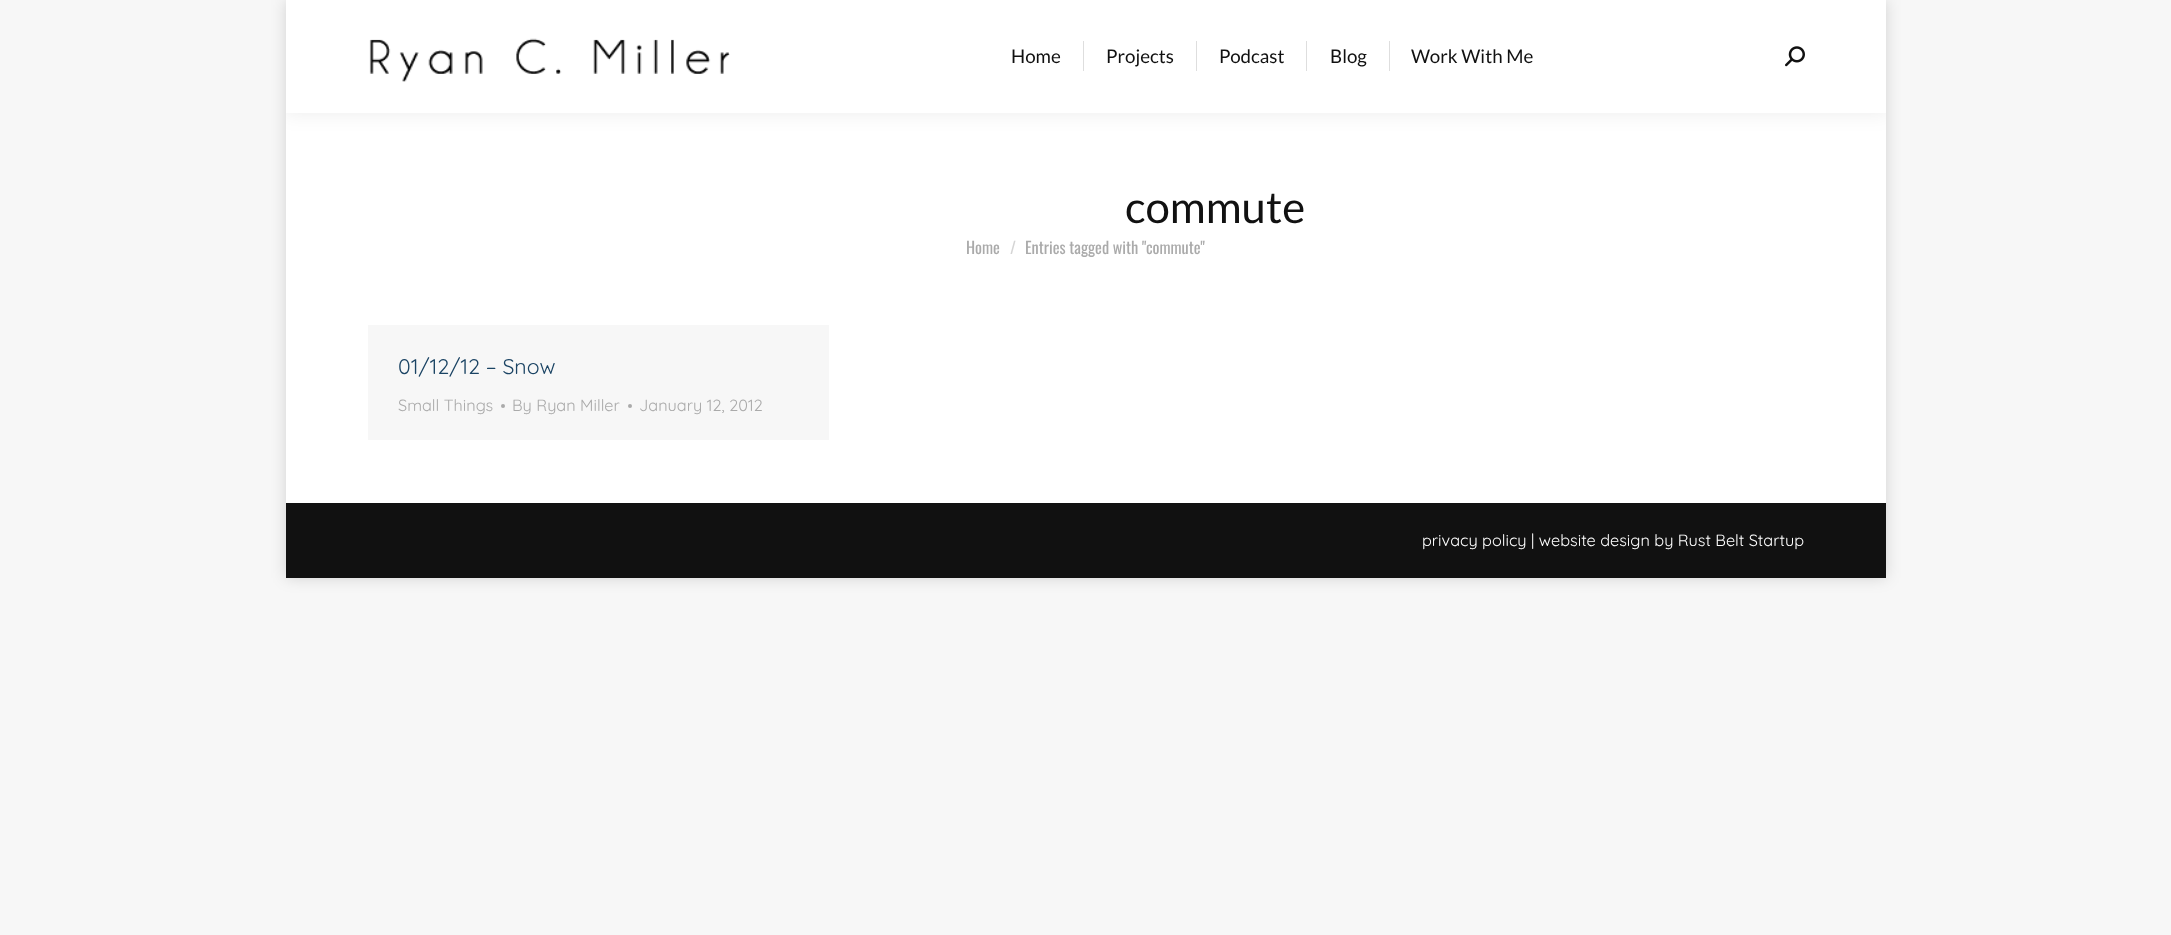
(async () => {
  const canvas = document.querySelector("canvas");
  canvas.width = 2171;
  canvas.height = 935;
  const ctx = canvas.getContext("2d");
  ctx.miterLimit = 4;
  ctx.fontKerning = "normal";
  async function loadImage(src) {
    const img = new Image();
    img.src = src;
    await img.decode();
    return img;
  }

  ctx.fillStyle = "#f7f7f7";
  ctx.fillRect(0, 0, 2171, 935);
  ctx.fillStyle = "rgba(0, 0, 0, 0.15)";
  ctx.filter = "blur(7.5px)";
  ctx.beginPath();
  ctx.rect(286, 0, 1600, 578);
  ctx.fill();
  ctx.filter = "none";
  ctx.fillStyle = "#ffffff";
  ctx.fillRect(286, 113, 1600, 390);
  ctx.save();
  ctx.beginPath();
  ctx.rect(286, 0, 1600, 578);
  ctx.clip();
  ctx.fillStyle = "rgba(0, 0, 0, 0.07)";
  ctx.filter = "blur(9.5px)";
  ctx.beginPath();
  ctx.rect(285, -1, 1603, 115);
  ctx.fill();
  ctx.filter = "none";
  ctx.restore();
  ctx.fillRect(286, 0, 1600, 113);
  ctx.drawImage(await loadImage("img/1.png"), 369, 38, 361, 44);
  for (const [x, y, w, h, color] of [
    [1083, 41, 1, 30, "#dedede"],
    [1196, 41, 1, 30, "#dedede"],
    [1306, 41, 1, 30, "#dedede"],
    [1389, 41, 1, 30, "#dedede"],
  ]) {
    ctx.fillStyle = color;
    ctx.fillRect(x, y, w, h);
  }
  ctx.drawImage(await loadImage("img/2.png"), 1785, 46, 20, 21);
  ctx.fillStyle = "#f7f7f7";
  ctx.fillRect(368, 325, 461, 115);
  ctx.fillStyle = "#aaaaaa";
  ctx.beginPath();
  ctx.arc(503, 406, 2, 0, Math.PI * 2);
  ctx.fill();
  ctx.beginPath();
  ctx.arc(630, 406, 2, 0, Math.PI * 2);
  ctx.fill();
  ctx.fillStyle = "#111111";
  ctx.fillRect(286, 503, 1600, 75);
  ctx.font = "18.75px Lato";
  for (const [text, x, y] of [
    ["Home", 1011, 63],
    ["Projects", 1106, 63],
    ["Podcast", 1219, 63],
    ["Blog", 1330, 63],
    ["Work With Me", 1411, 63],
  ]) {
    ctx.fillText(text, x, y);
  }
  ctx.font = "43.75px Lato";
  ctx.fillText("commute", 1125, 223);
  ctx.font = "16.25px Oswald";
  ctx.fillStyle = "#aaaaaa";
  ctx.fillText("Home", 966, 254);
  ctx.fillStyle = "#d5d5d5";
  ctx.fillText("/", 1010, 254);
  ctx.fillStyle = "#aaaaaa";
  ctx.fillText("Entries tagged with \"commute\"", 1025, 254);
  ctx.font = "21.25px Quicksand";
  ctx.fillStyle = "#1b4464";
  ctx.fillText("01/12/12 – Snow", 398, 374);
  ctx.font = "16.25px Quicksand";
  ctx.fillStyle = "#aaaaaa";
  for (const [text, x, y] of [
    ["Small Things", 398, 411],
    ["By Ryan Miller", 512, 411],
    ["January 12, 2012", 639, 411],
  ]) {
    ctx.fillText(text, x, y);
  }
  ctx.fillStyle = "#ffffff";
  ctx.fillText("privacy policy | website design by Rust Belt Startup", 1422, 546);
})();
